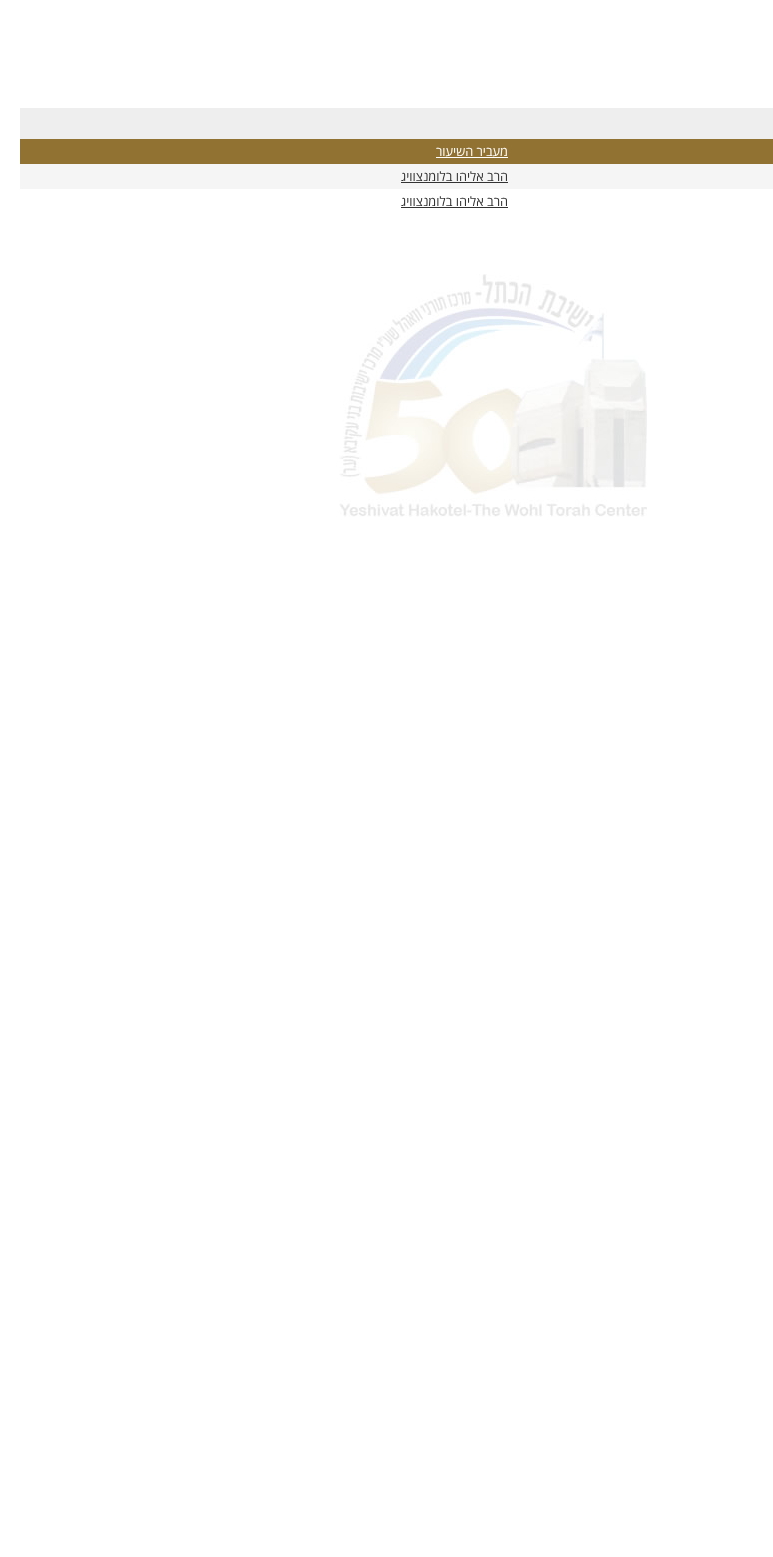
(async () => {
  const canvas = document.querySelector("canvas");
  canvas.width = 773;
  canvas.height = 1557;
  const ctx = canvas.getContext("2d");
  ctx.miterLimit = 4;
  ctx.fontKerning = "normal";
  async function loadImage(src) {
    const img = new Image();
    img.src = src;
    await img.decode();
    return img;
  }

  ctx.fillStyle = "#ffffff";
  ctx.fillRect(0, 0, 773, 1557);
  ctx.drawImage(await loadImage("img/1.png"), 339, 274, 308, 243);
  for (const [x, y, w, h, color] of [
    [20, 108, 753, 31, "#eeeeee"],
    [20, 139, 753, 25, "#917233"],
    [436, 157, 72, 1, "#ffffff"],
    [20, 164, 753, 25, "#f5f5f5"],
    [401, 182, 107, 1, "#333333"],
    [401, 207, 107, 1, "#333333"],
  ]) {
    ctx.fillStyle = color;
    ctx.fillRect(x, y, w, h);
  }
  ctx.direction = "rtl";
  ctx.font = "12.75px Open Sans";
  ctx.fillStyle = "#ffffff";
  ctx.fillText("מעביר השיעור", 508, 156);
  ctx.fillStyle = "#333333";
  ctx.fillText("הרב אליהו בלומנצוויג", 508, 181);
  ctx.fillText("הרב אליהו בלומנצוויג", 508, 206);
})();
